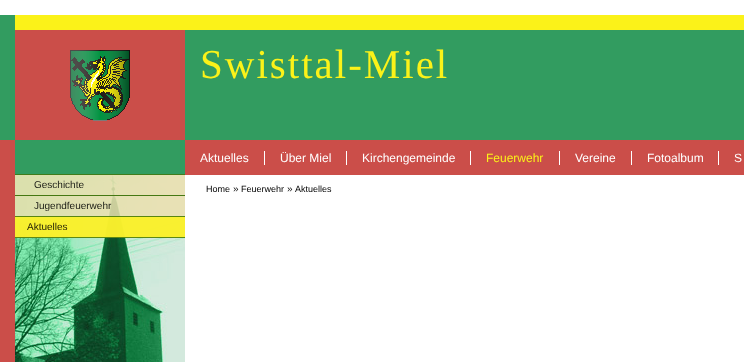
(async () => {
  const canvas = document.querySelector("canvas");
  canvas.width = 744;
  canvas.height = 362;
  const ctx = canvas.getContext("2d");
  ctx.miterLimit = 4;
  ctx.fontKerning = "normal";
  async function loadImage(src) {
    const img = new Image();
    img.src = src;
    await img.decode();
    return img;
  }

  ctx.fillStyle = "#ffffff";
  ctx.fillRect(0, 0, 744, 362);
  for (const [x, y, w, h, color] of [
    [0, 15, 744, 125, "#329c60"],
    [15, 15, 729, 15, "#fbf219"],
    [15, 30, 170, 110, "#cb4e49"],
  ]) {
    ctx.fillStyle = color;
    ctx.fillRect(x, y, w, h);
  }
  ctx.drawImage(await loadImage("img/1.png"), 70, 50, 60, 71);
  ctx.drawImage(await loadImage("img/2.png"), 15, 175, 170, 187);
  for (const [x, y, w, h, color] of [
    [0, 140, 15, 222, "#cb4e49"],
    [185, 140, 559, 35, "#cb4e49"],
    [15, 140, 170, 34, "#329c60"],
    [264, 151, 1, 14, "#ffffff"],
    [346, 151, 1, 14, "#ffffff"],
    [470, 151, 1, 14, "#ffffff"],
    [559, 151, 1, 14, "#ffffff"],
    [631, 151, 1, 14, "#ffffff"],
    [718, 151, 1, 14, "#ffffff"],
    [15, 175, 170, 63, "rgba(236, 223, 174, 0.85)"],
    [15, 174, 170, 1, "#407c1b"],
    [15, 195, 170, 1, "rgba(66, 118, 15, 0.85)"],
    [15, 195, 170, 1, "rgba(66, 118, 15, 0.85)"],
    [15, 217, 170, 21, "rgba(251, 242, 25, 0.85)"],
    [15, 216, 170, 1, "#5a8611"],
    [15, 237, 170, 1, "rgba(66, 118, 15, 0.85)"],
  ]) {
    ctx.fillStyle = color;
    ctx.fillRect(x, y, w, h);
  }
  ctx.letterSpacing = "2px";
  ctx.font = "41px Liberation Serif";
  ctx.fillStyle = "#fbf219";
  ctx.fillText("Swisttal-Miel", 200, 78);
  ctx.letterSpacing = "0px";
  ctx.font = "12px Liberation Sans";
  ctx.fillStyle = "#ffffff";
  for (const [text, x, y] of [
    ["Aktuelles", 200, 162],
    ["Über Miel", 280, 162],
    ["Kirchengemeinde", 362, 162],
  ]) {
    ctx.fillText(text, x, y);
  }
  ctx.fillStyle = "#fbf219";
  ctx.fillText("Feuerwehr", 486, 162);
  ctx.fillStyle = "#ffffff";
  for (const [text, x, y] of [
    ["Vereine", 575, 162],
    ["Fotoalbum", 647, 162],
    ["S", 734, 162],
  ]) {
    ctx.fillText(text, x, y);
  }
  ctx.font = "10px Liberation Sans";
  ctx.fillStyle = "#21221a";
  ctx.fillText("Geschichte", 34, 188);
  ctx.fillText("Jugendfeuerwehr", 34, 209);
  ctx.fillStyle = "#252407";
  ctx.fillText("Aktuelles", 27, 230);
  ctx.font = "9px Liberation Sans";
  ctx.fillStyle = "#000000";
  ctx.fillText("Home", 206, 192);
  ctx.font = "10px Liberation Sans";
  ctx.fillText("»", 233, 192);
  ctx.font = "9px Liberation Sans";
  ctx.fillText("Feuerwehr", 241, 192);
  ctx.font = "10px Liberation Sans";
  ctx.fillText("»", 287, 192);
  ctx.font = "9px Liberation Sans";
  ctx.fillText("Aktuelles", 295, 192);
})();
